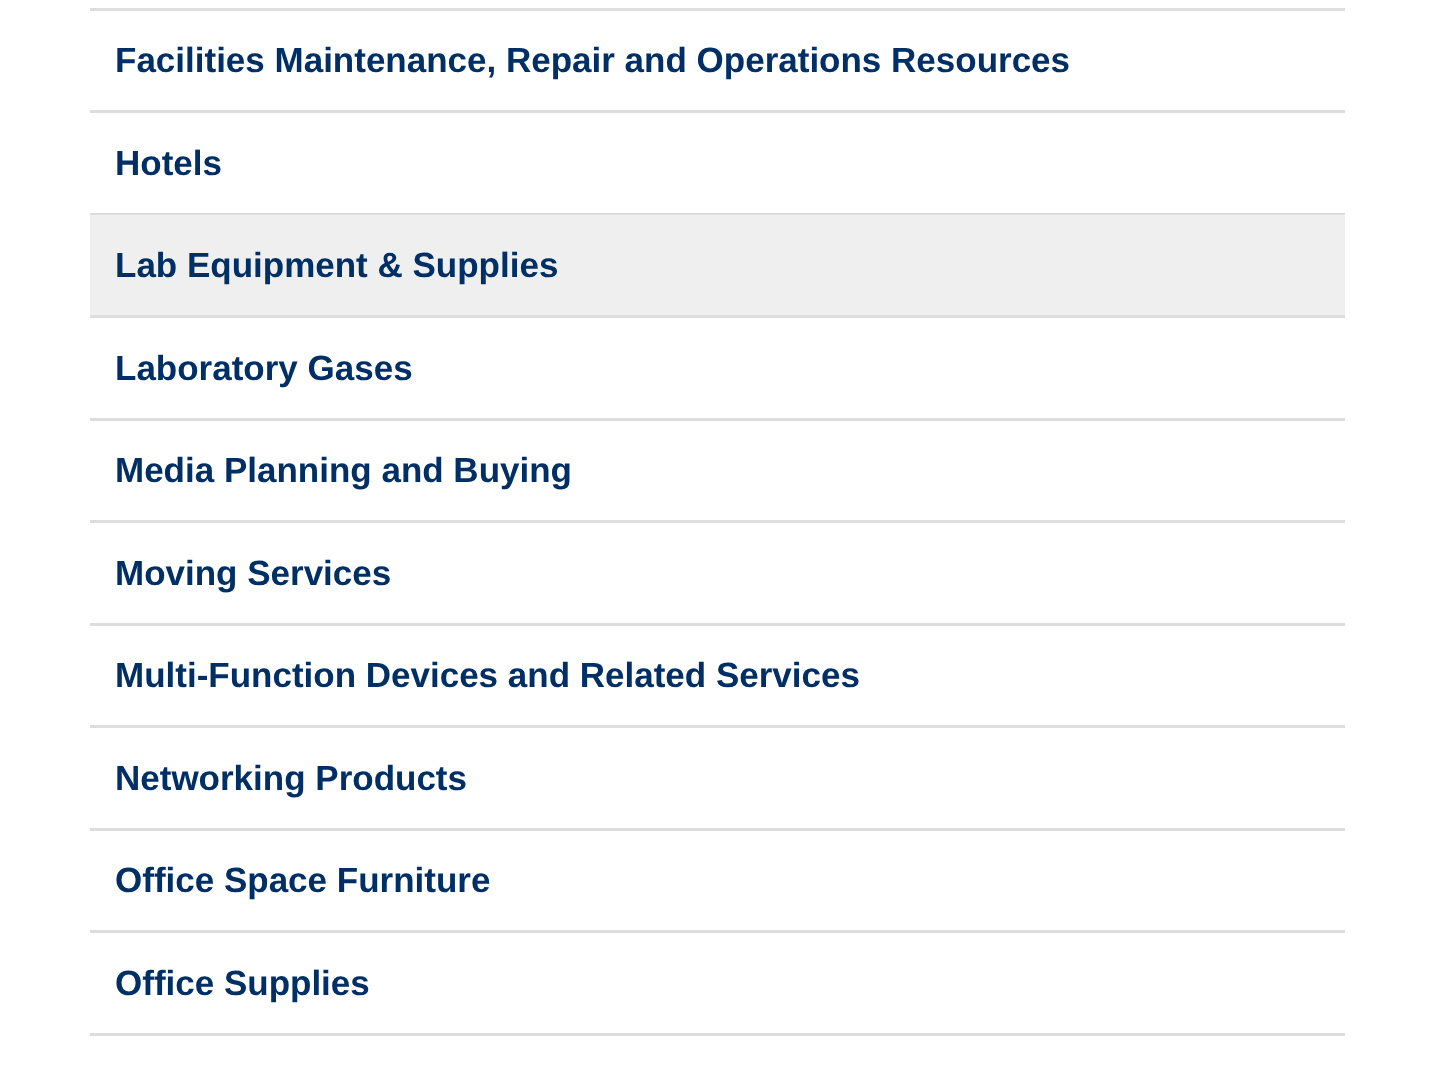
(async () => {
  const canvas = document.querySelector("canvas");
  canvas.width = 1433;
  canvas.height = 1077;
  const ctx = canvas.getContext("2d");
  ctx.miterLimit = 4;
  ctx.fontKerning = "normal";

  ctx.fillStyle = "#ffffff";
  ctx.fillRect(0, 0, 1433, 1077);
  for (const [x, y, w, h, color] of [
    [90, 8, 1255, 3, "#dddddd"],
    [90, 110, 1255, 3, "#dddddd"],
    [90, 213, 1255, 2, "#dddddd"],
    [90, 215, 1255, 100, "#efefef"],
    [90, 315, 1255, 3, "#dddddd"],
    [90, 418, 1255, 3, "#dddddd"],
    [90, 520, 1255, 3, "#dddddd"],
    [90, 623, 1255, 3, "#dddddd"],
    [90, 725, 1255, 3, "#dddddd"],
    [90, 828, 1255, 3, "#dddddd"],
    [90, 930, 1255, 3, "#dddddd"],
    [90, 1033, 1255, 3, "#dddddd"],
  ]) {
    ctx.fillStyle = color;
    ctx.fillRect(x, y, w, h);
  }
  ctx.font = "bold 35px Liberation Sans";
  ctx.fillStyle = "#002f65";
  for (const [text, x, y] of [
    ["Facilities Maintenance, Repair and Operations Resources", 115, 72],
    ["Hotels", 115, 175],
    ["Lab Equipment & Supplies", 115, 277],
    ["Laboratory Gases", 115, 380],
    ["Media Planning and Buying", 115, 482],
    ["Moving Services", 115, 585],
    ["Multi-Function Devices and Related Services", 115, 687],
    ["Networking Products", 115, 790],
    ["Office Space Furniture", 115, 892],
    ["Office Supplies", 115, 995],
  ]) {
    ctx.fillText(text, x, y);
  }
})();
